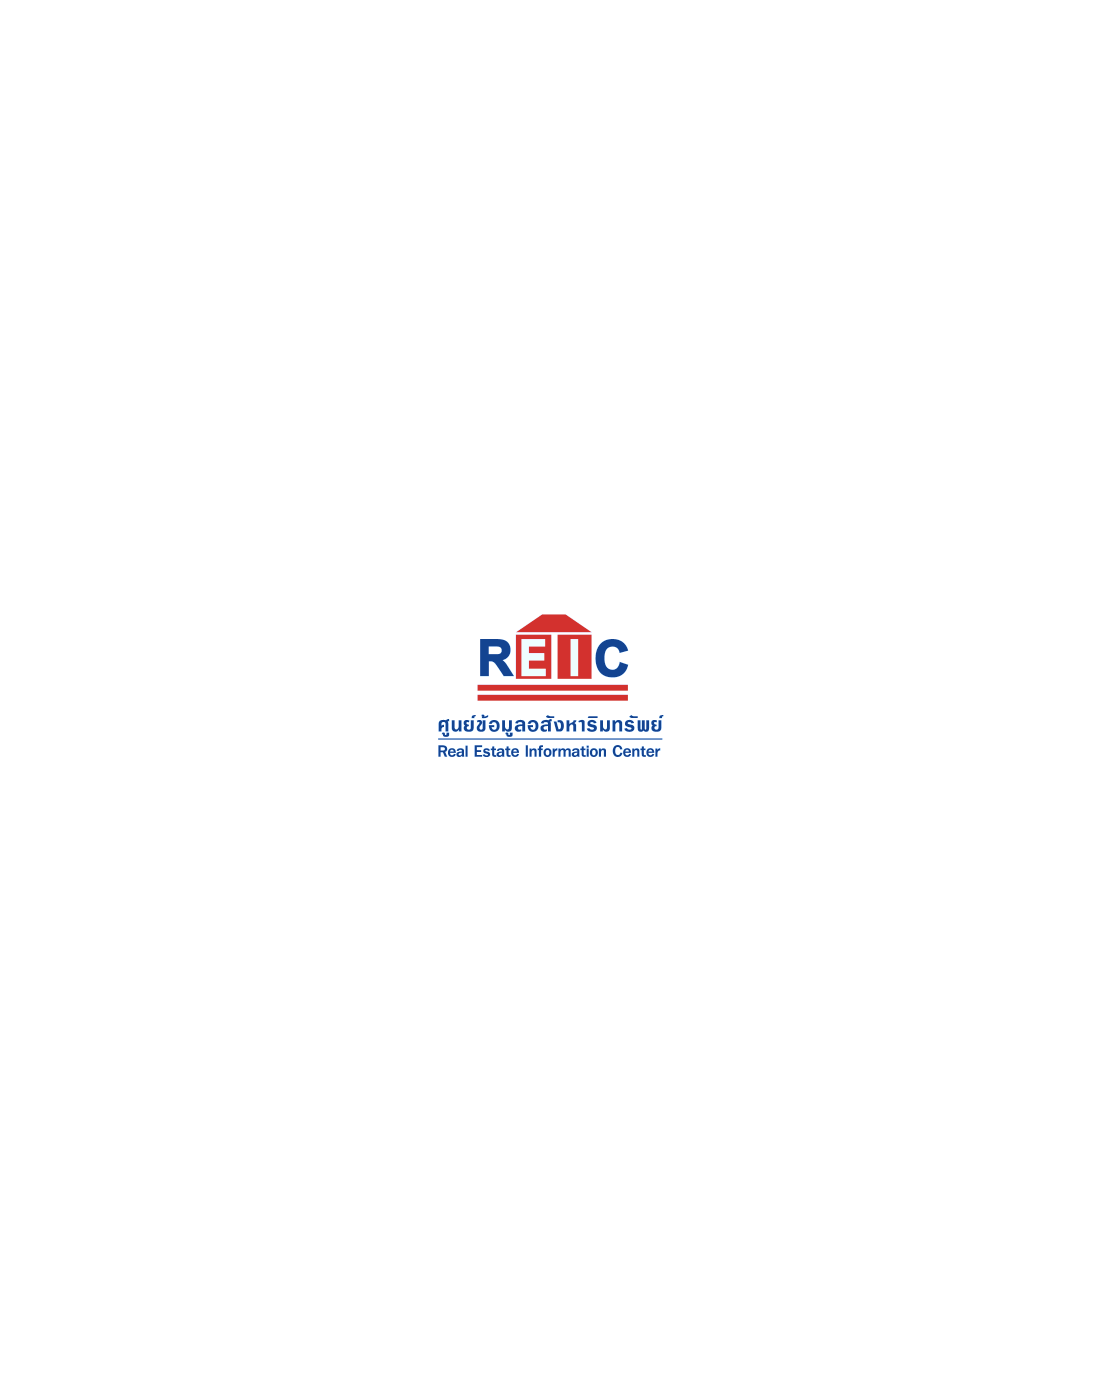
(async () => {
  const canvas = document.querySelector("canvas");
  canvas.width = 1104;
  canvas.height = 1374;
  const ctx = canvas.getContext("2d");
  ctx.miterLimit = 4;
  ctx.fontKerning = "normal";
  async function loadImage(src) {
    const img = new Image();
    img.src = src;
    await img.decode();
    return img;
  }

  ctx.fillStyle = "#ffffff";
  ctx.fillRect(0, 0, 1104, 1374);
  ctx.drawImage(await loadImage("img/1.png"), 438, 614, 226, 143);
})();
